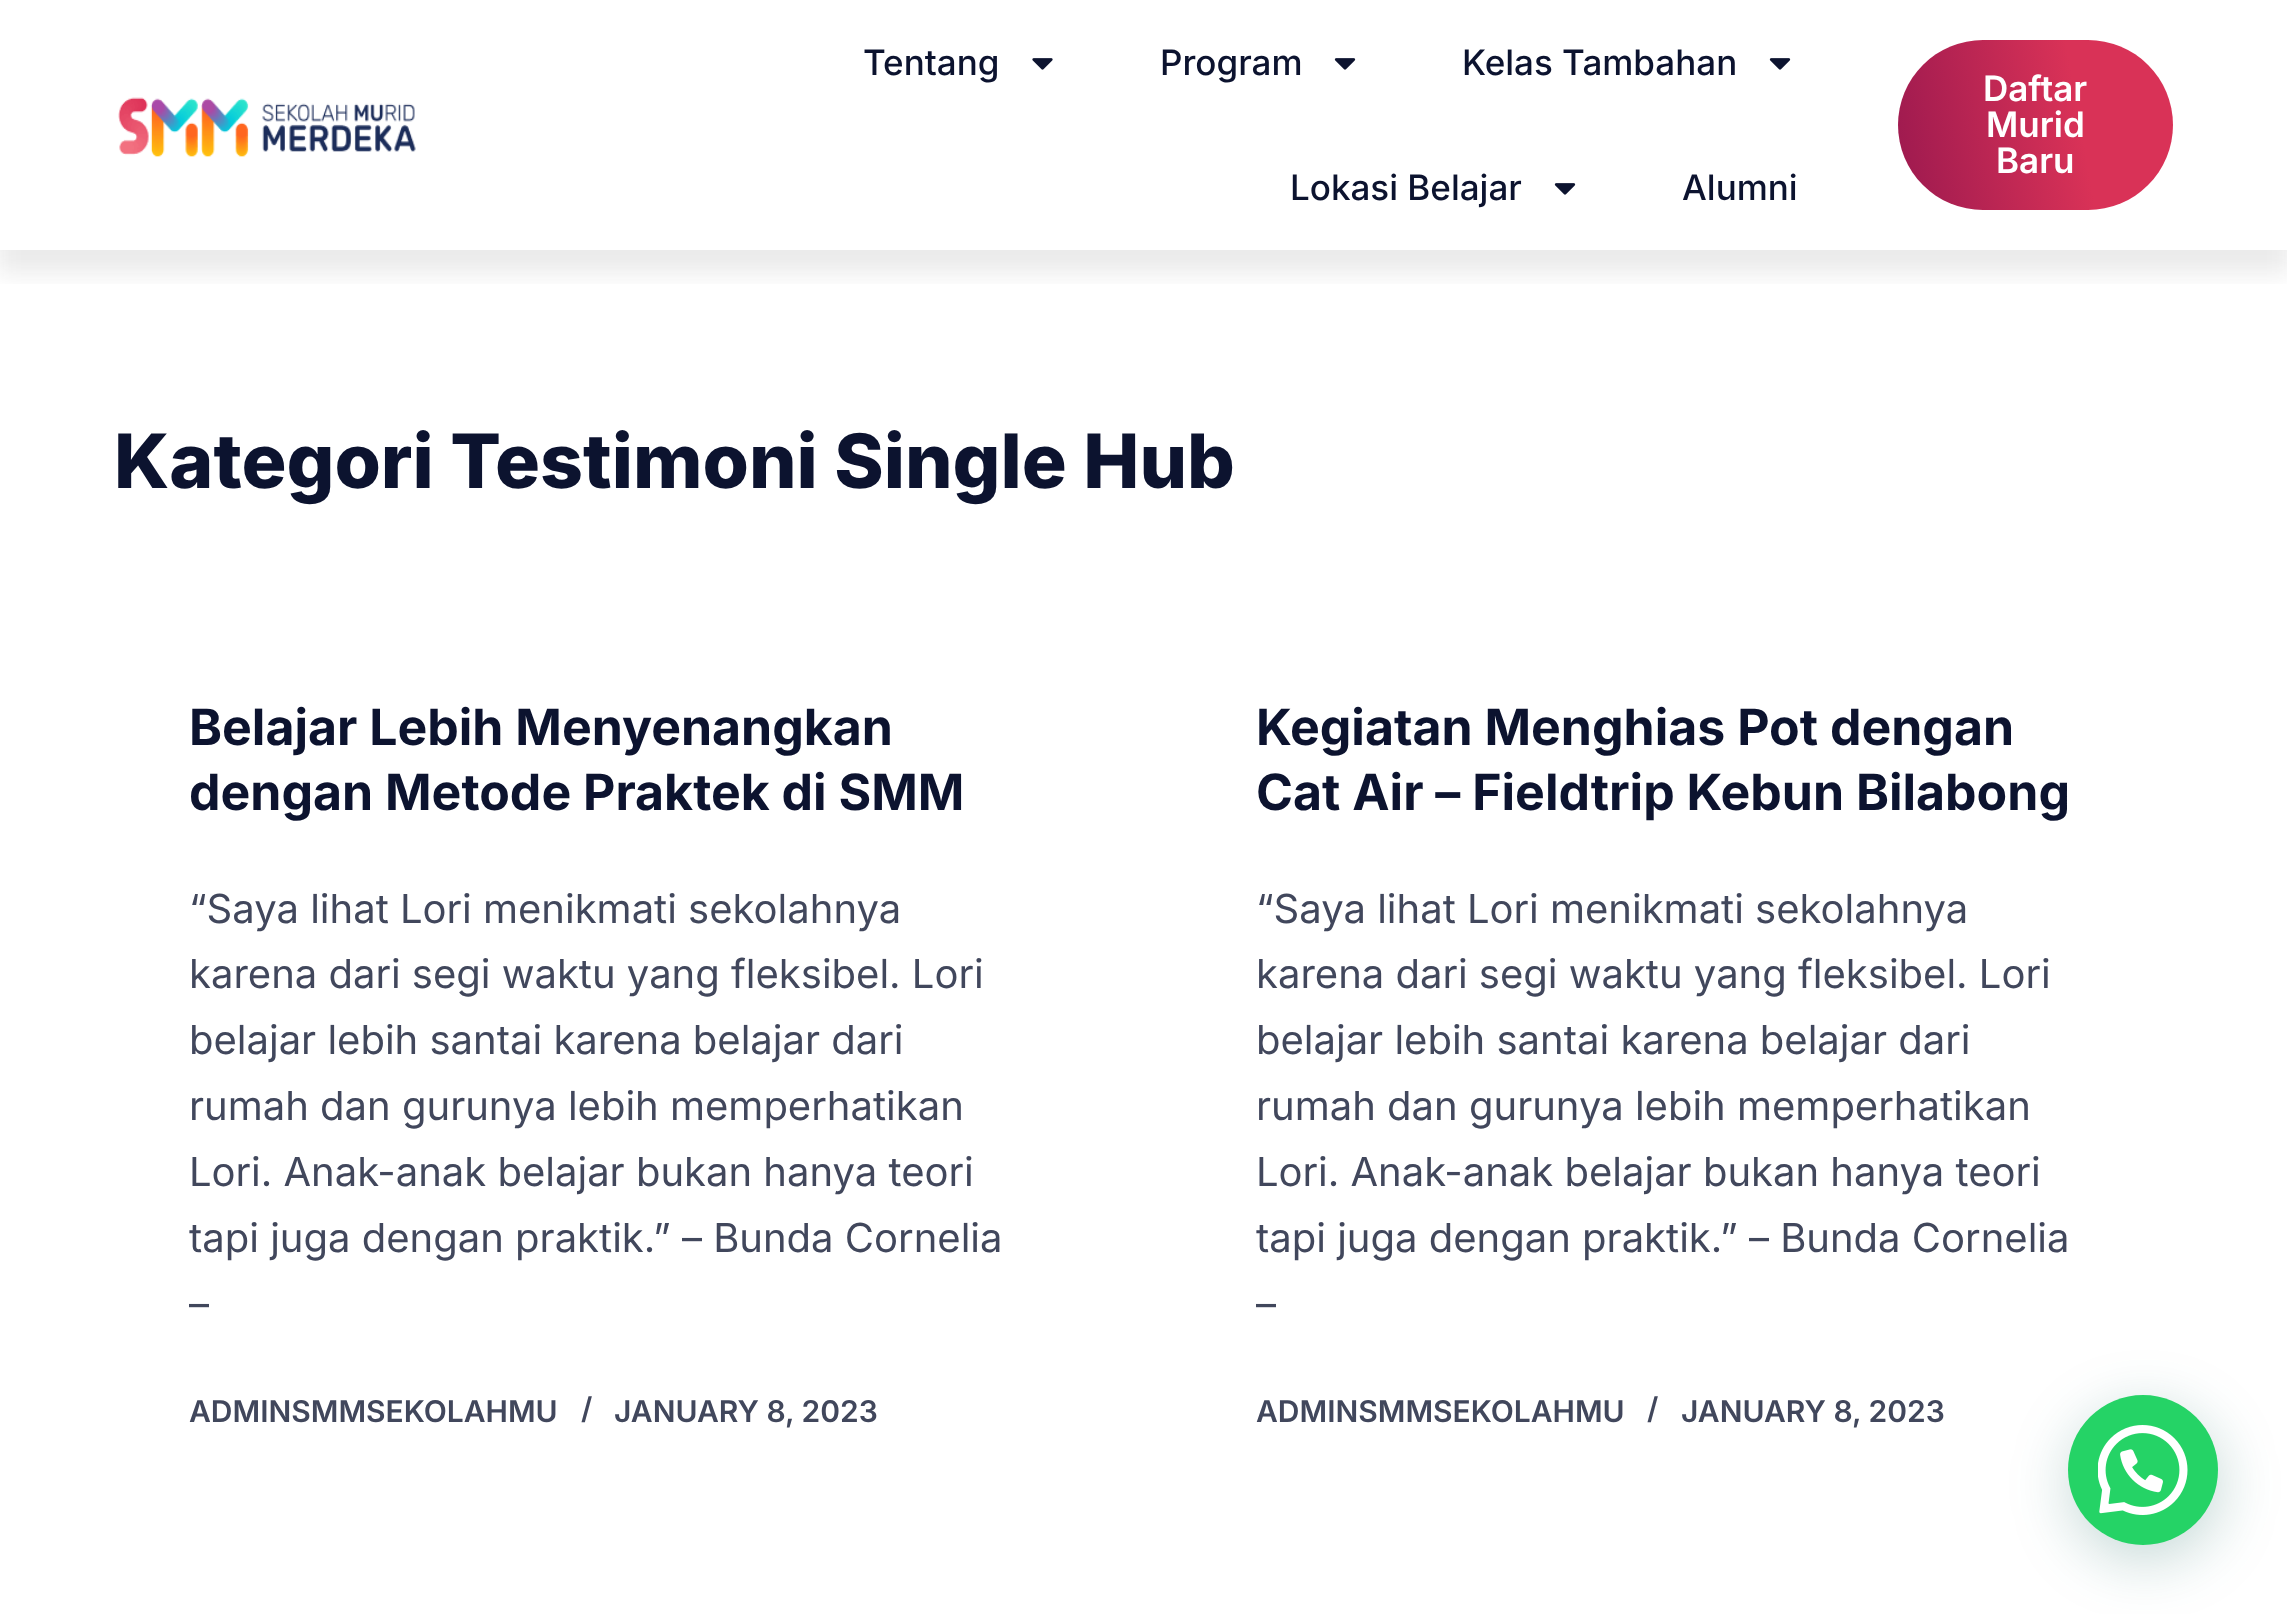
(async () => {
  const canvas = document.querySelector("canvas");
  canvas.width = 2287;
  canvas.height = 1614;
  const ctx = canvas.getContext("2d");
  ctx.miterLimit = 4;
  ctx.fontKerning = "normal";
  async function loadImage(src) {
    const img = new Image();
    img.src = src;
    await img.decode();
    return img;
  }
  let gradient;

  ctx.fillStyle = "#ffffff";
  ctx.fillRect(0, 0, 2287, 1614);
  ctx.save();
  ctx.beginPath();
  ctx.rect(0, 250, 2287, 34);
  ctx.clip();
  ctx.fillStyle = "rgba(51, 51, 51, 0.1)";
  ctx.filter = "blur(12.5px)";
  ctx.beginPath();
  ctx.rect(-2, 18, 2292, 255);
  ctx.fill();
  ctx.filter = "none";
  ctx.restore();
  ctx.drawImage(await loadImage("img/1.png"), 118, 97, 298, 60);
  ctx.drawImage(await loadImage("img/2.png"), 1032, 58, 21, 12);
  ctx.drawImage(await loadImage("img/3.png"), 1334, 58, 22, 12);
  ctx.drawImage(await loadImage("img/3.png"), 1769, 58, 22, 12);
  ctx.drawImage(await loadImage("img/3.png"), 1554, 183, 22, 12);
  gradient = ctx.createLinearGradient(1887, 151, 2183, 99);
  gradient.addColorStop(0, "#9c194f");
  gradient.addColorStop(0.65, "#d93257");
  ctx.fillStyle = gradient;
  ctx.beginPath();
  ctx.roundRect(1898, 40, 275, 170, 85);
  ctx.fill();
  ctx.fillStyle = "rgba(7, 94, 84, 0.24)";
  ctx.filter = "blur(30px)";
  ctx.beginPath();
  ctx.roundRect(2070, 1410, 150, 150, 75);
  ctx.fill();
  ctx.filter = "none";
  ctx.fillStyle = "#25d366";
  ctx.beginPath();
  ctx.arc(2143, 1470, 75, 0, Math.PI * 2);
  ctx.fill();
  ctx.drawImage(await loadImage("img/4.png"), 2098, 1425, 90, 90);
  ctx.font = "500 35px Inter";
  ctx.fillStyle = "#0c132f";
  for (const [text, x, y] of [
    ["Tentang", 863, 75],
    ["Program", 1160, 75],
    ["Kelas Tambahan", 1462, 75],
    ["Lokasi Belajar", 1290, 200],
    ["Alumni", 1682, 200],
  ]) {
    ctx.fillText(text, x, y);
  }
  ctx.font = "600 35px Inter";
  ctx.fillStyle = "#ffffff";
  for (const [text, x, y] of [
    ["Daftar", 1983, 101],
    ["Murid", 1986, 137],
    ["Baru", 1996, 173],
  ]) {
    ctx.fillText(text, x, y);
  }
  ctx.font = "800 75px Inter";
  ctx.fillStyle = "#0c132f";
  ctx.fillText("Kategori Testimoni Single Hub", 114, 488);
  ctx.font = "bold 50px Inter";
  ctx.fillText("Belajar Lebih Menyenangkan", 189, 745);
  ctx.fillText("dengan Metode Praktek di SMM", 189, 810);
  ctx.font = "40px Inter";
  ctx.fillStyle = "#41475c";
  for (const [text, x, y] of [
    ["“Saya lihat Lori menikmati sekolahnya", 189, 923],
    ["karena dari segi waktu yang fleksibel. Lori", 189, 988],
    ["belajar lebih santai karena belajar dari", 189, 1054],
    ["rumah dan gurunya lebih memperhatikan", 189, 1120],
    ["Lori. Anak-anak belajar bukan hanya teori", 189, 1186],
    ["tapi juga dengan praktik.” – Bunda Cornelia", 189, 1252],
    ["–", 189, 1318],
  ]) {
    ctx.fillText(text, x, y);
  }
  ctx.font = "600 30px Inter";
  for (const [text, x, y] of [
    ["ADMINSMMSEKOLAHMU", 189, 1422],
    ["/", 581, 1419],
    ["JANUARY 8, 2023", 614, 1422],
  ]) {
    ctx.fillText(text, x, y);
  }
  ctx.font = "bold 50px Inter";
  ctx.fillStyle = "#0c132f";
  ctx.fillText("Kegiatan Menghias Pot dengan", 1256, 745);
  ctx.fillText("Cat Air – Fieldtrip Kebun Bilabong", 1256, 810);
  ctx.font = "40px Inter";
  ctx.fillStyle = "#41475c";
  for (const [text, x, y] of [
    ["“Saya lihat Lori menikmati sekolahnya", 1256, 923],
    ["karena dari segi waktu yang fleksibel. Lori", 1256, 988],
    ["belajar lebih santai karena belajar dari", 1256, 1054],
    ["rumah dan gurunya lebih memperhatikan", 1256, 1120],
    ["Lori. Anak-anak belajar bukan hanya teori", 1256, 1186],
    ["tapi juga dengan praktik.” – Bunda Cornelia", 1256, 1252],
    ["–", 1256, 1318],
  ]) {
    ctx.fillText(text, x, y);
  }
  ctx.font = "600 30px Inter";
  for (const [text, x, y] of [
    ["ADMINSMMSEKOLAHMU", 1256, 1422],
    ["/", 1647, 1419],
    ["JANUARY 8, 2023", 1681, 1422],
  ]) {
    ctx.fillText(text, x, y);
  }
})();
